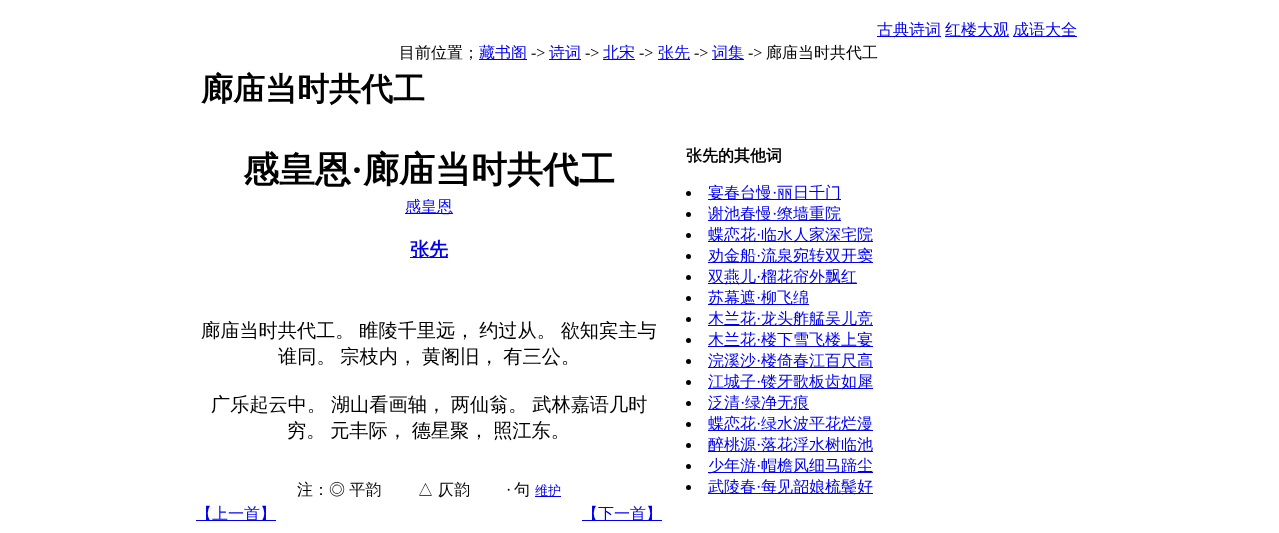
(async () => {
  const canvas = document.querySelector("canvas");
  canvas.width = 1279;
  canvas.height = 533;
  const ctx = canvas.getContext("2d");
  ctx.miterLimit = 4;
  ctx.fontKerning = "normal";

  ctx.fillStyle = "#ffffff";
  ctx.fillRect(0, 0, 1279, 533);
  for (const [x, y, w, h, color] of [
    [877, 36, 64, 1, "#0000ee"],
    [945, 36, 64, 1, "#0000ee"],
    [1013, 36, 64, 1, "#0000ee"],
    [479, 59, 48, 1, "#0000ee"],
    [549, 59, 32, 1, "#0000ee"],
    [603, 59, 32, 1, "#0000ee"],
    [658, 59, 32, 1, "#0000ee"],
    [712, 59, 32, 1, "#0000ee"],
    [405, 213, 48, 1, "#0000ee"],
    [410, 257, 38, 1, "#0000ee"],
    [535, 496, 26, 1, "#0000ee"],
    [196, 520, 80, 1, "#0000ee"],
    [582, 520, 80, 1, "#0000ee"],
  ]) {
    ctx.fillStyle = color;
    ctx.fillRect(x, y, w, h);
  }
  ctx.fillStyle = "#000000";
  ctx.beginPath();
  ctx.arc(688.5, 193.5, 2.5, 0, Math.PI * 2);
  ctx.fill();
  ctx.fillStyle = "#0000ee";
  ctx.fillRect(708, 199, 133, 1);
  ctx.fillStyle = "#000000";
  ctx.beginPath();
  ctx.arc(688.5, 214.5, 2.5, 0, Math.PI * 2);
  ctx.fill();
  ctx.fillStyle = "#0000ee";
  ctx.fillRect(708, 220, 133, 1);
  ctx.fillStyle = "#000000";
  ctx.beginPath();
  ctx.arc(688.5, 235.5, 2.5, 0, Math.PI * 2);
  ctx.fill();
  ctx.fillStyle = "#0000ee";
  ctx.fillRect(708, 241, 165, 1);
  ctx.fillStyle = "#000000";
  ctx.beginPath();
  ctx.arc(688.5, 256.5, 2.5, 0, Math.PI * 2);
  ctx.fill();
  ctx.fillStyle = "#0000ee";
  ctx.fillRect(708, 262, 165, 1);
  ctx.fillStyle = "#000000";
  ctx.beginPath();
  ctx.arc(688.5, 277.5, 2.5, 0, Math.PI * 2);
  ctx.fill();
  ctx.fillStyle = "#0000ee";
  ctx.fillRect(708, 283, 149, 1);
  ctx.fillStyle = "#000000";
  ctx.beginPath();
  ctx.arc(688.5, 298.5, 2.5, 0, Math.PI * 2);
  ctx.fill();
  ctx.fillStyle = "#0000ee";
  ctx.fillRect(708, 304, 101, 1);
  ctx.fillStyle = "#000000";
  ctx.beginPath();
  ctx.arc(688.5, 319.5, 2.5, 0, Math.PI * 2);
  ctx.fill();
  ctx.fillStyle = "#0000ee";
  ctx.fillRect(708, 325, 165, 1);
  ctx.fillStyle = "#000000";
  ctx.beginPath();
  ctx.arc(688.5, 340.5, 2.5, 0, Math.PI * 2);
  ctx.fill();
  ctx.fillStyle = "#0000ee";
  ctx.fillRect(708, 346, 165, 1);
  ctx.fillStyle = "#000000";
  ctx.beginPath();
  ctx.arc(688.5, 361.5, 2.5, 0, Math.PI * 2);
  ctx.fill();
  ctx.fillStyle = "#0000ee";
  ctx.fillRect(708, 367, 165, 1);
  ctx.fillStyle = "#000000";
  ctx.beginPath();
  ctx.arc(688.5, 382.5, 2.5, 0, Math.PI * 2);
  ctx.fill();
  ctx.fillStyle = "#0000ee";
  ctx.fillRect(708, 388, 165, 1);
  ctx.fillStyle = "#000000";
  ctx.beginPath();
  ctx.arc(688.5, 403.5, 2.5, 0, Math.PI * 2);
  ctx.fill();
  ctx.fillStyle = "#0000ee";
  ctx.fillRect(708, 409, 101, 1);
  ctx.fillStyle = "#000000";
  ctx.beginPath();
  ctx.arc(688.5, 424.5, 2.5, 0, Math.PI * 2);
  ctx.fill();
  ctx.fillStyle = "#0000ee";
  ctx.fillRect(708, 430, 165, 1);
  ctx.fillStyle = "#000000";
  ctx.beginPath();
  ctx.arc(688.5, 445.5, 2.5, 0, Math.PI * 2);
  ctx.fill();
  ctx.fillStyle = "#0000ee";
  ctx.fillRect(708, 451, 165, 1);
  ctx.fillStyle = "#000000";
  ctx.beginPath();
  ctx.arc(688.5, 466.5, 2.5, 0, Math.PI * 2);
  ctx.fill();
  ctx.fillStyle = "#0000ee";
  ctx.fillRect(708, 472, 165, 1);
  ctx.fillStyle = "#000000";
  ctx.beginPath();
  ctx.arc(688.5, 487.5, 2.5, 0, Math.PI * 2);
  ctx.fill();
  ctx.fillStyle = "#0000ee";
  ctx.fillRect(708, 493, 165, 1);
  ctx.font = "500 16px WenQuanYi Zen Hei";
  for (const [text, x, y] of [
    ["古典诗词", 877, 35],
    ["红楼大观", 945, 35],
    ["成语大全", 1013, 35],
  ]) {
    ctx.fillText(text, x, y);
  }
  ctx.fillStyle = "#000000";
  ctx.fillText("目前位置；", 399, 58);
  ctx.fillStyle = "#0000ee";
  ctx.fillText("藏书阁", 479, 58);
  ctx.font = "16px Liberation Serif";
  ctx.fillStyle = "#000000";
  ctx.fillText("->", 531, 58);
  ctx.font = "500 16px WenQuanYi Zen Hei";
  ctx.fillStyle = "#0000ee";
  ctx.fillText("诗词", 549, 58);
  ctx.font = "16px Liberation Serif";
  ctx.fillStyle = "#000000";
  ctx.fillText("->", 585, 58);
  ctx.font = "500 16px WenQuanYi Zen Hei";
  ctx.fillStyle = "#0000ee";
  ctx.fillText("北宋", 603, 58);
  ctx.font = "16px Liberation Serif";
  ctx.fillStyle = "#000000";
  ctx.fillText("->", 639, 58);
  ctx.font = "500 16px WenQuanYi Zen Hei";
  ctx.fillStyle = "#0000ee";
  ctx.fillText("张先", 658, 58);
  ctx.font = "16px Liberation Serif";
  ctx.fillStyle = "#000000";
  ctx.fillText("->", 694, 58);
  ctx.font = "500 16px WenQuanYi Zen Hei";
  ctx.fillStyle = "#0000ee";
  ctx.fillText("词集", 712, 58);
  ctx.font = "16px Liberation Serif";
  ctx.fillStyle = "#000000";
  ctx.fillText("->", 748, 58);
  ctx.font = "500 16px WenQuanYi Zen Hei";
  ctx.fillText("廊庙当时共代工", 766, 58);
  ctx.font = "bold 32px WenQuanYi Zen Hei";
  ctx.fillText("廊庙当时共代工", 201, 100);
  ctx.font = "bold 36px WenQuanYi Zen Hei";
  ctx.fillText("感皇恩", 243, 182);
  ctx.font = "bold 36px Liberation Serif";
  ctx.fillText("·", 351, 182);
  ctx.font = "bold 36px WenQuanYi Zen Hei";
  ctx.fillText("廊庙当时共代工", 363, 182);
  ctx.font = "500 16px WenQuanYi Zen Hei";
  ctx.fillStyle = "#0000ee";
  ctx.fillText("感皇恩", 405, 212);
  ctx.font = "bold 19px WenQuanYi Zen Hei";
  ctx.fillText("张先", 410, 256);
  ctx.wordSpacing = "-1px";
  ctx.font = "500 19.2px WenQuanYi Zen Hei";
  ctx.fillStyle = "#000000";
  for (const [text, x, y] of [
    ["廊庙当时共代工。 睢陵千里远， 约过从。 欲知宾主与", 201, 337],
    ["谁同。 宗枝内， 黄阁旧， 有三公。", 278, 363],
    ["广乐起云中。 湖山看画轴， 两仙翁。 武林嘉语几时", 211, 411],
    ["穷。 元丰际， 德星聚， 照江东。", 287, 437],
  ]) {
    ctx.fillText(text, x, y);
  }
  ctx.wordSpacing = "-0.5px";
  ctx.font = "500 16px WenQuanYi Zen Hei";
  ctx.fillText("注：◎ 平韵　　 △ 仄韵", 297, 495);
  ctx.wordSpacing = "0px";
  ctx.font = "16px Liberation Serif";
  ctx.fillText("·", 506, 495);
  ctx.font = "500 16px WenQuanYi Zen Hei";
  ctx.fillText("句", 514, 495);
  ctx.font = "500 13px WenQuanYi Zen Hei";
  ctx.fillStyle = "#0000ee";
  ctx.fillText("维护", 535, 495);
  ctx.font = "500 16px WenQuanYi Zen Hei";
  ctx.fillText("【上一首】", 196, 519);
  ctx.fillText("【下一首】", 582, 519);
  ctx.font = "bold 16px WenQuanYi Zen Hei";
  ctx.fillStyle = "#000000";
  ctx.fillText("张先的其他词", 686, 161);
  ctx.font = "500 16px WenQuanYi Zen Hei";
  ctx.fillStyle = "#0000ee";
  ctx.fillText("宴春台慢", 708, 198);
  ctx.font = "16px Liberation Serif";
  ctx.fillText("·", 772, 198);
  ctx.font = "500 16px WenQuanYi Zen Hei";
  ctx.fillText("丽日千门", 777, 198);
  ctx.fillText("谢池春慢", 708, 219);
  ctx.font = "16px Liberation Serif";
  ctx.fillText("·", 772, 219);
  ctx.font = "500 16px WenQuanYi Zen Hei";
  ctx.fillText("缭墙重院", 777, 219);
  ctx.fillText("蝶恋花", 708, 240);
  ctx.font = "16px Liberation Serif";
  ctx.fillText("·", 756, 240);
  ctx.font = "500 16px WenQuanYi Zen Hei";
  ctx.fillText("临水人家深宅院", 761, 240);
  ctx.fillText("劝金船", 708, 261);
  ctx.font = "16px Liberation Serif";
  ctx.fillText("·", 756, 261);
  ctx.font = "500 16px WenQuanYi Zen Hei";
  ctx.fillText("流泉宛转双开窦", 761, 261);
  ctx.fillText("双燕儿", 708, 282);
  ctx.font = "16px Liberation Serif";
  ctx.fillText("·", 756, 282);
  ctx.font = "500 16px WenQuanYi Zen Hei";
  ctx.fillText("榴花帘外飘红", 761, 282);
  ctx.fillText("苏幕遮", 708, 303);
  ctx.font = "16px Liberation Serif";
  ctx.fillText("·", 756, 303);
  ctx.font = "500 16px WenQuanYi Zen Hei";
  ctx.fillText("柳飞绵", 761, 303);
  ctx.fillText("木兰花", 708, 324);
  ctx.font = "16px Liberation Serif";
  ctx.fillText("·", 756, 324);
  ctx.font = "500 16px WenQuanYi Zen Hei";
  ctx.fillText("龙头舴艋吴儿竞", 761, 324);
  ctx.fillText("木兰花", 708, 345);
  ctx.font = "16px Liberation Serif";
  ctx.fillText("·", 756, 345);
  ctx.font = "500 16px WenQuanYi Zen Hei";
  ctx.fillText("楼下雪飞楼上宴", 761, 345);
  ctx.fillText("浣溪沙", 708, 366);
  ctx.font = "16px Liberation Serif";
  ctx.fillText("·", 756, 366);
  ctx.font = "500 16px WenQuanYi Zen Hei";
  ctx.fillText("楼倚春江百尺高", 761, 366);
  ctx.fillText("江城子", 708, 387);
  ctx.font = "16px Liberation Serif";
  ctx.fillText("·", 756, 387);
  ctx.font = "500 16px WenQuanYi Zen Hei";
  ctx.fillText("镂牙歌板齿如犀", 761, 387);
  ctx.fillText("泛清", 708, 408);
  ctx.font = "16px Liberation Serif";
  ctx.fillText("·", 740, 408);
  ctx.font = "500 16px WenQuanYi Zen Hei";
  ctx.fillText("绿净无痕", 745, 408);
  ctx.fillText("蝶恋花", 708, 429);
  ctx.font = "16px Liberation Serif";
  ctx.fillText("·", 756, 429);
  ctx.font = "500 16px WenQuanYi Zen Hei";
  ctx.fillText("绿水波平花烂漫", 761, 429);
  ctx.fillText("醉桃源", 708, 450);
  ctx.font = "16px Liberation Serif";
  ctx.fillText("·", 756, 450);
  ctx.font = "500 16px WenQuanYi Zen Hei";
  ctx.fillText("落花浮水树临池", 761, 450);
  ctx.fillText("少年游", 708, 471);
  ctx.font = "16px Liberation Serif";
  ctx.fillText("·", 756, 471);
  ctx.font = "500 16px WenQuanYi Zen Hei";
  ctx.fillText("帽檐风细马蹄尘", 761, 471);
  ctx.fillText("武陵春", 708, 492);
  ctx.font = "16px Liberation Serif";
  ctx.fillText("·", 756, 492);
  ctx.font = "500 16px WenQuanYi Zen Hei";
  ctx.fillText("每见韶娘梳鬓好", 761, 492);
})();
